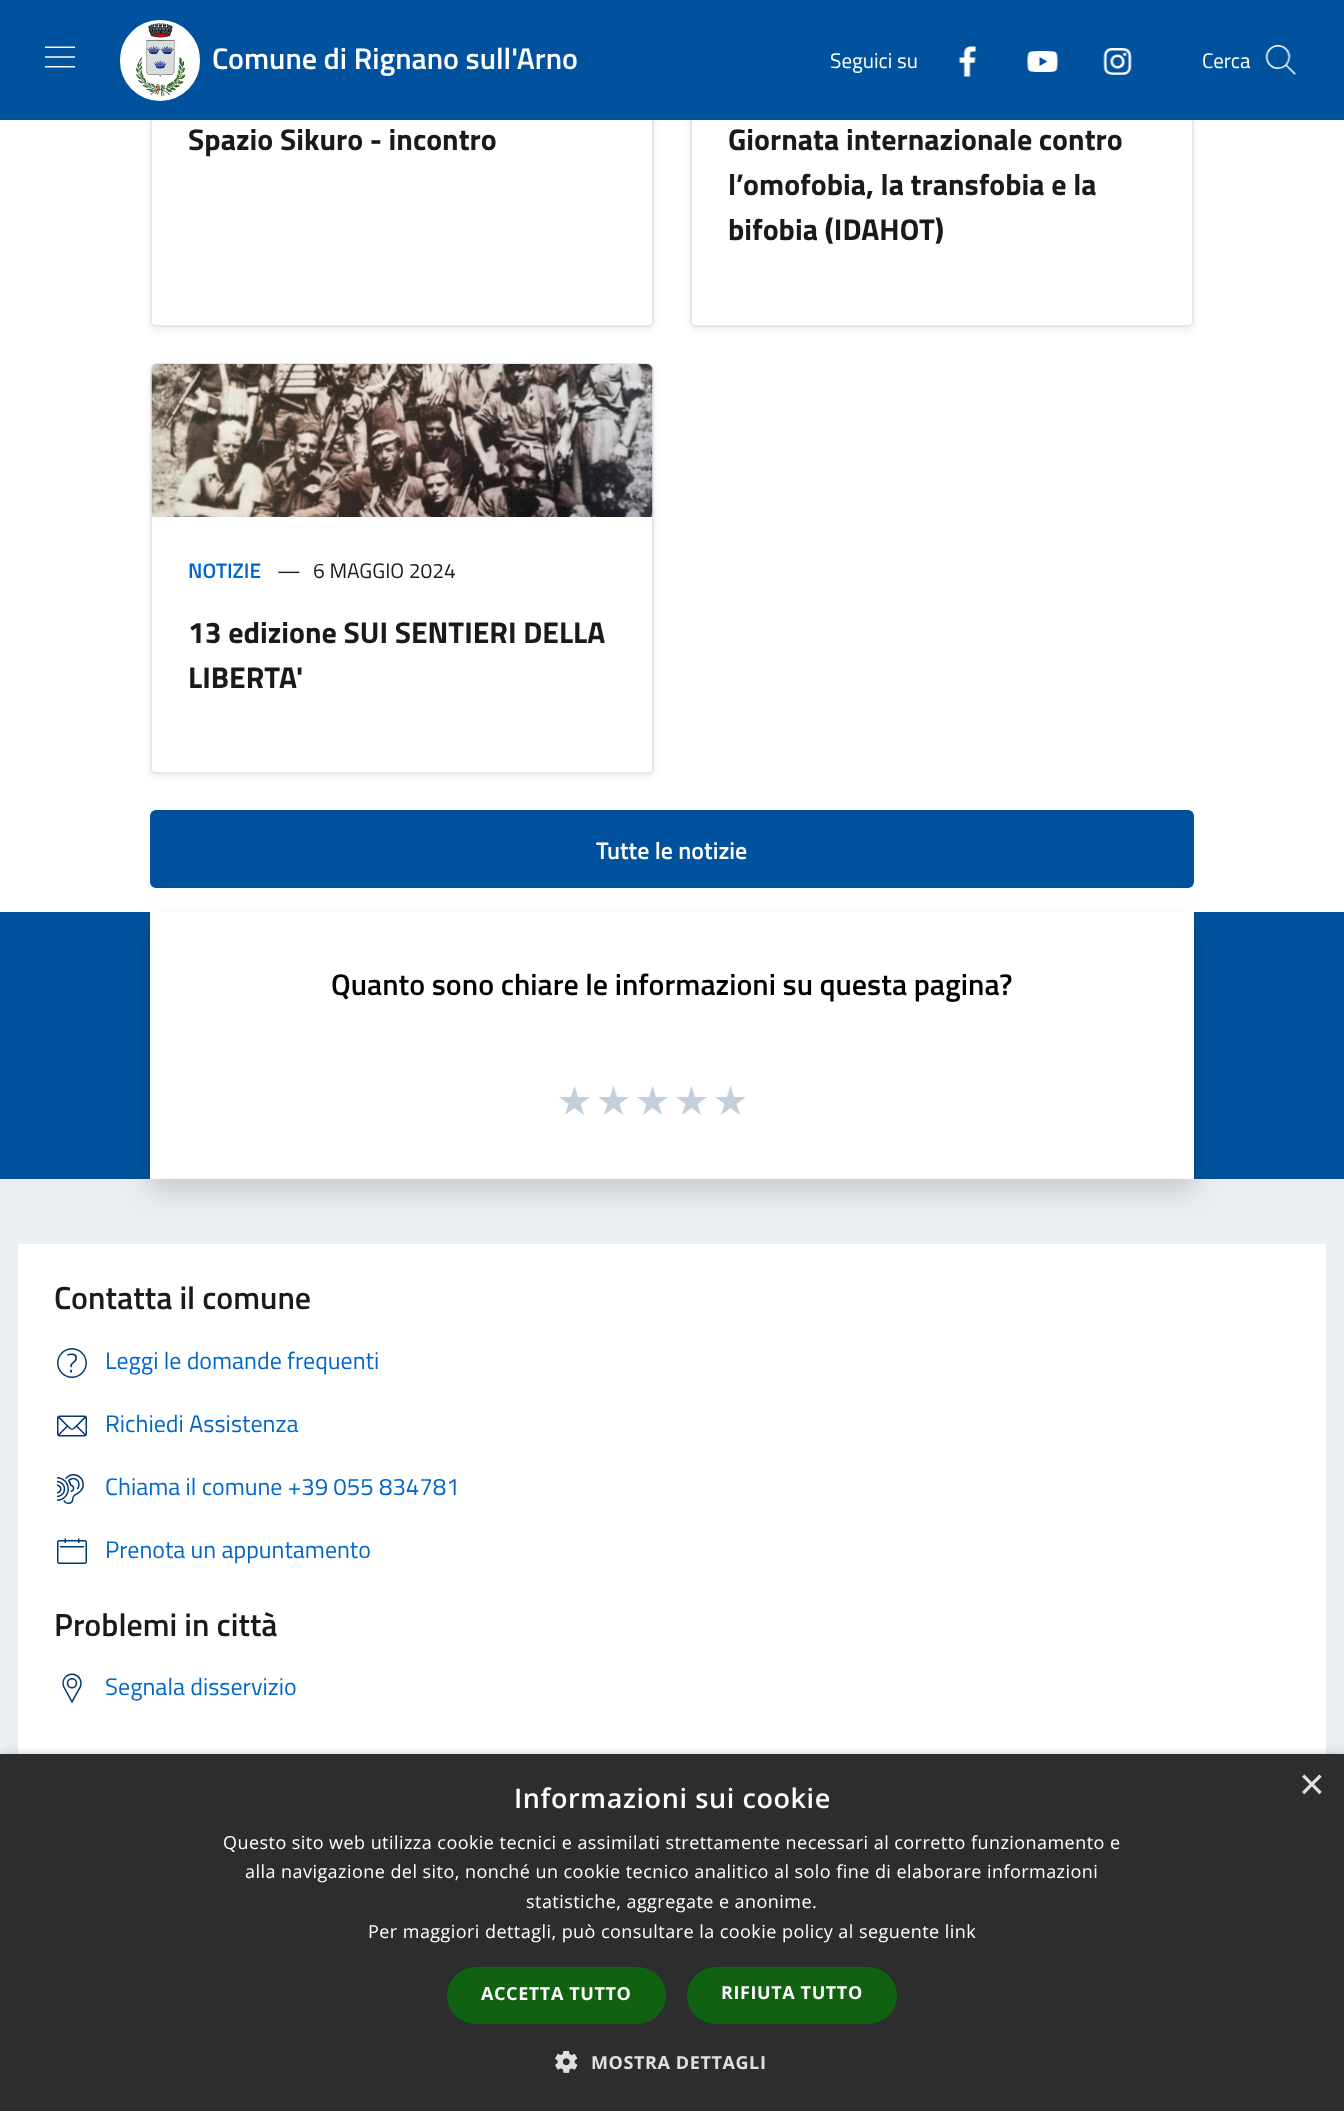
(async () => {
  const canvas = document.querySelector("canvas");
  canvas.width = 1344;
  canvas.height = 2111;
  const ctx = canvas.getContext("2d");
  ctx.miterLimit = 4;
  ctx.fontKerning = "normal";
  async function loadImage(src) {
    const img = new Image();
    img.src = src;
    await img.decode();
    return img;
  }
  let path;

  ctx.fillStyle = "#ffffff";
  ctx.fillRect(0, 0, 1344, 2111);
  ctx.fillStyle = "rgba(0, 0, 0, 0.07)";
  ctx.filter = "blur(3px)";
  ctx.beginPath();
  ctx.roundRect(150, -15, 504, 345, 6);
  ctx.fill();
  ctx.filter = "none";
  ctx.fillStyle = "#ffffff";
  ctx.beginPath();
  ctx.roundRect(151, -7, 502, 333, 5);
  ctx.fill();
  ctx.strokeStyle = "#e9e6f2";
  ctx.lineWidth = 2;
  ctx.stroke();
  ctx.fillStyle = "rgba(0, 0, 0, 0.07)";
  ctx.filter = "blur(3px)";
  ctx.beginPath();
  ctx.roundRect(690, -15, 504, 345, 6);
  ctx.fill();
  ctx.filter = "none";
  ctx.fillStyle = "#ffffff";
  ctx.beginPath();
  ctx.roundRect(691, -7, 502, 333, 5);
  ctx.fill();
  ctx.stroke();
  ctx.fillStyle = "#00529e";
  ctx.fillRect(0, 0, 1344, 120);
  ctx.drawImage(await loadImage("img/1.png"), 45, 46, 30, 22);
  ctx.fillStyle = "#ffffff";
  ctx.beginPath();
  ctx.roundRect(121, 21, 78, 79, 39);
  ctx.fill();
  ctx.strokeStyle = "#ffffff";
  ctx.stroke();
  ctx.drawImage(await loadImage("img/2.png"), 136, 23, 50, 74);
  ctx.drawImage(await loadImage("img/3.png"), 959, 46, 18, 31);
  ctx.drawImage(await loadImage("img/4.png"), 1027, 51, 31, 21);
  ctx.drawImage(await loadImage("img/5.png"), 1103, 48, 29, 27);
  ctx.drawImage(await loadImage("img/6.png"), 1265, 45, 32, 30);
  ctx.fillStyle = "rgba(0, 0, 0, 0.07)";
  ctx.filter = "blur(3px)";
  ctx.beginPath();
  ctx.roundRect(150, 366, 504, 411, 6);
  ctx.fill();
  ctx.filter = "none";
  ctx.fillStyle = "#ffffff";
  ctx.beginPath();
  ctx.roundRect(151, 364, 502, 409, 5);
  ctx.fill();
  ctx.strokeStyle = "#e9e6f2";
  ctx.stroke();
  ctx.drawImage(await loadImage("img/7.png"), 151, 364, 502, 153);
  ctx.fillStyle = "#00529e";
  ctx.beginPath();
  ctx.roundRect(151.5, 811.5, 1041, 75, 4.5);
  ctx.fill();
  ctx.strokeStyle = "#00529e";
  ctx.lineWidth = 3;
  ctx.stroke();
  ctx.fillRect(0, 912, 1344, 267);
  ctx.fillStyle = "#ebeef0";
  ctx.fillRect(0, 1179, 1344, 575);
  ctx.fillStyle = "rgba(0, 0, 0, 0.15)";
  ctx.filter = "blur(12px)";
  ctx.beginPath();
  ctx.rect(150, 924, 1044, 267);
  ctx.fill();
  ctx.filter = "none";
  ctx.fillStyle = "#ffffff";
  ctx.fillRect(150, 912, 1044, 267);
  ctx.fillStyle = "#c3cfdb";
  path = new Path2D("M574.5 1085.5L571 1097H559L568.5 1104L565 1115L574.5 1108L584 1115L580.5 1104L590 1097H578Z");
  ctx.fill(path);
  path = new Path2D("M613.5 1085.5L610 1097H598L607.5 1104L604 1115L613.5 1108L623 1115L619.5 1104L629 1097H617Z");
  ctx.fill(path);
  path = new Path2D("M652.5 1085.5L649 1097H637L646.5 1104L643 1115L652.5 1108L662 1115L658.5 1104L668 1097H656Z");
  ctx.fill(path);
  path = new Path2D("M691.5 1085.5L688 1097H676L685.5 1104L682 1115L691.5 1108L701 1115L697.5 1104L707 1097H695Z");
  ctx.fill(path);
  path = new Path2D("M730.5 1085.5L727 1097H715L724.5 1104L721 1115L730.5 1108L740 1115L736.5 1104L746 1097H734Z");
  ctx.fill(path);
  ctx.fillStyle = "#ffffff";
  ctx.fillRect(18, 1244, 1308, 510);
  ctx.drawImage(await loadImage("img/8.png"), 57, 1348, 30, 30);
  ctx.drawImage(await loadImage("img/9.png"), 57, 1415, 30, 22);
  ctx.drawImage(await loadImage("img/10.png"), 57, 1474, 27, 30);
  ctx.drawImage(await loadImage("img/11.png"), 57, 1538, 30, 26);
  ctx.drawImage(await loadImage("img/12.png"), 62, 1673, 20, 31);
  ctx.fillStyle = "rgba(0, 0, 0, 0.35)";
  ctx.filter = "blur(6px)";
  ctx.beginPath();
  ctx.rect(2, 1757, 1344, 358);
  ctx.fill();
  ctx.filter = "none";
  ctx.fillStyle = "#2d2d2d";
  ctx.fillRect(0, 1754, 1344, 357);
  ctx.fillStyle = "#106110";
  ctx.beginPath();
  ctx.roundRect(447, 1967, 219, 57, 28.5);
  ctx.fill();
  ctx.beginPath();
  ctx.roundRect(687, 1967, 210, 57, 28.5);
  ctx.fill();
  ctx.drawImage(await loadImage("img/13.png"), 555, 2051, 23, 22);
  ctx.font = "600 30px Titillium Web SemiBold";
  ctx.fillStyle = "#ffffff";
  ctx.fillText("Comune di Rignano sull'Arno", 212, 69);
  ctx.font = "21px Titillium Web";
  ctx.fillText("Seguici su", 830, 68);
  ctx.fillText("Cerca", 1202, 68);
  ctx.font = "bold 30px Titillium Web";
  ctx.fillStyle = "#1a1a1a";
  for (const [text, x, y] of [
    ["Spazio Sikuro - incontro", 188, 150],
    ["Giornata internazionale contro", 728, 150],
    ["l’omofobia, la transfobia e la", 728, 195],
    ["bifobia (IDAHOT)", 728, 240],
  ]) {
    ctx.fillText(text, x, y);
  }
  ctx.font = "600 21px Titillium Web SemiBold";
  ctx.fillStyle = "#0066cc";
  ctx.fillText("NOTIZIE", 188, 578);
  ctx.font = "21px Titillium Web";
  ctx.fillStyle = "#1a1a1a";
  ctx.fillText("—", 277, 578);
  ctx.fillText("6 MAGGIO 2024", 313, 578);
  ctx.font = "bold 30px Titillium Web";
  ctx.fillText("13 edizione SUI SENTIERI DELLA", 188, 643);
  ctx.fillText("LIBERTA'", 188, 688);
  ctx.font = "600 24px Titillium Web SemiBold";
  ctx.fillStyle = "#ffffff";
  ctx.fillText("Tutte le notizie", 596, 859);
  ctx.font = "600 30px Titillium Web SemiBold";
  ctx.fillStyle = "#000000";
  ctx.fillText("Quanto sono chiare le informazioni su questa pagina?", 331, 995);
  ctx.font = "600 32px Titillium Web SemiBold";
  ctx.fillStyle = "#1a1a1a";
  ctx.fillText("Contatta il comune", 54, 1309);
  ctx.font = "24px Titillium Web";
  ctx.fillStyle = "#0066cc";
  for (const [text, x, y] of [
    ["Leggi le domande frequenti", 105, 1369],
    ["Richiedi Assistenza", 105, 1432],
    ["Chiama il comune +39 055 834781", 105, 1495],
    ["Prenota un appuntamento", 105, 1558],
  ]) {
    ctx.fillText(text, x, y);
  }
  ctx.font = "600 32px Titillium Web SemiBold";
  ctx.fillStyle = "#1a1a1a";
  ctx.fillText("Problemi in città", 54, 1636);
  ctx.font = "24px Titillium Web";
  ctx.fillStyle = "#0066cc";
  ctx.fillText("Segnala disservizio", 105, 1695);
  ctx.font = "44px Liberation Sans";
  ctx.fillStyle = "#e0e0e0";
  ctx.fillText("×", 1299, 1799);
  ctx.letterSpacing = "0.6px";
  ctx.font = "600 27px Open Sans";
  ctx.fillStyle = "#ffffff";
  ctx.fillText("Informazioni sui cookie", 514, 1808);
  ctx.letterSpacing = "0.45px";
  ctx.font = "18px Open Sans";
  for (const [text, x, y] of [
    ["Questo sito web utilizza cookie tecnici e assimilati strettamente necessari al corretto funzionamento e", 223, 1849],
    ["alla navigazione del sito, nonché un cookie tecnico analitico al solo fine di elaborare informazioni", 245, 1878],
    ["statistiche, aggregate e anonime.", 526, 1908],
    ["Per maggiori dettagli, può consultare la cookie policy al seguente link", 368, 1938],
  ]) {
    ctx.fillText(text, x, y);
  }
  ctx.letterSpacing = "0.6px";
  ctx.font = "bold 18px Open Sans";
  ctx.fillText("ACCETTA TUTTO", 481, 2000);
  ctx.fillText("RIFIUTA TUTTO", 721, 1999);
  ctx.fillStyle = "#e0e0e0";
  ctx.fillText("MOSTRA DETTAGLI", 591, 2069);
})();
